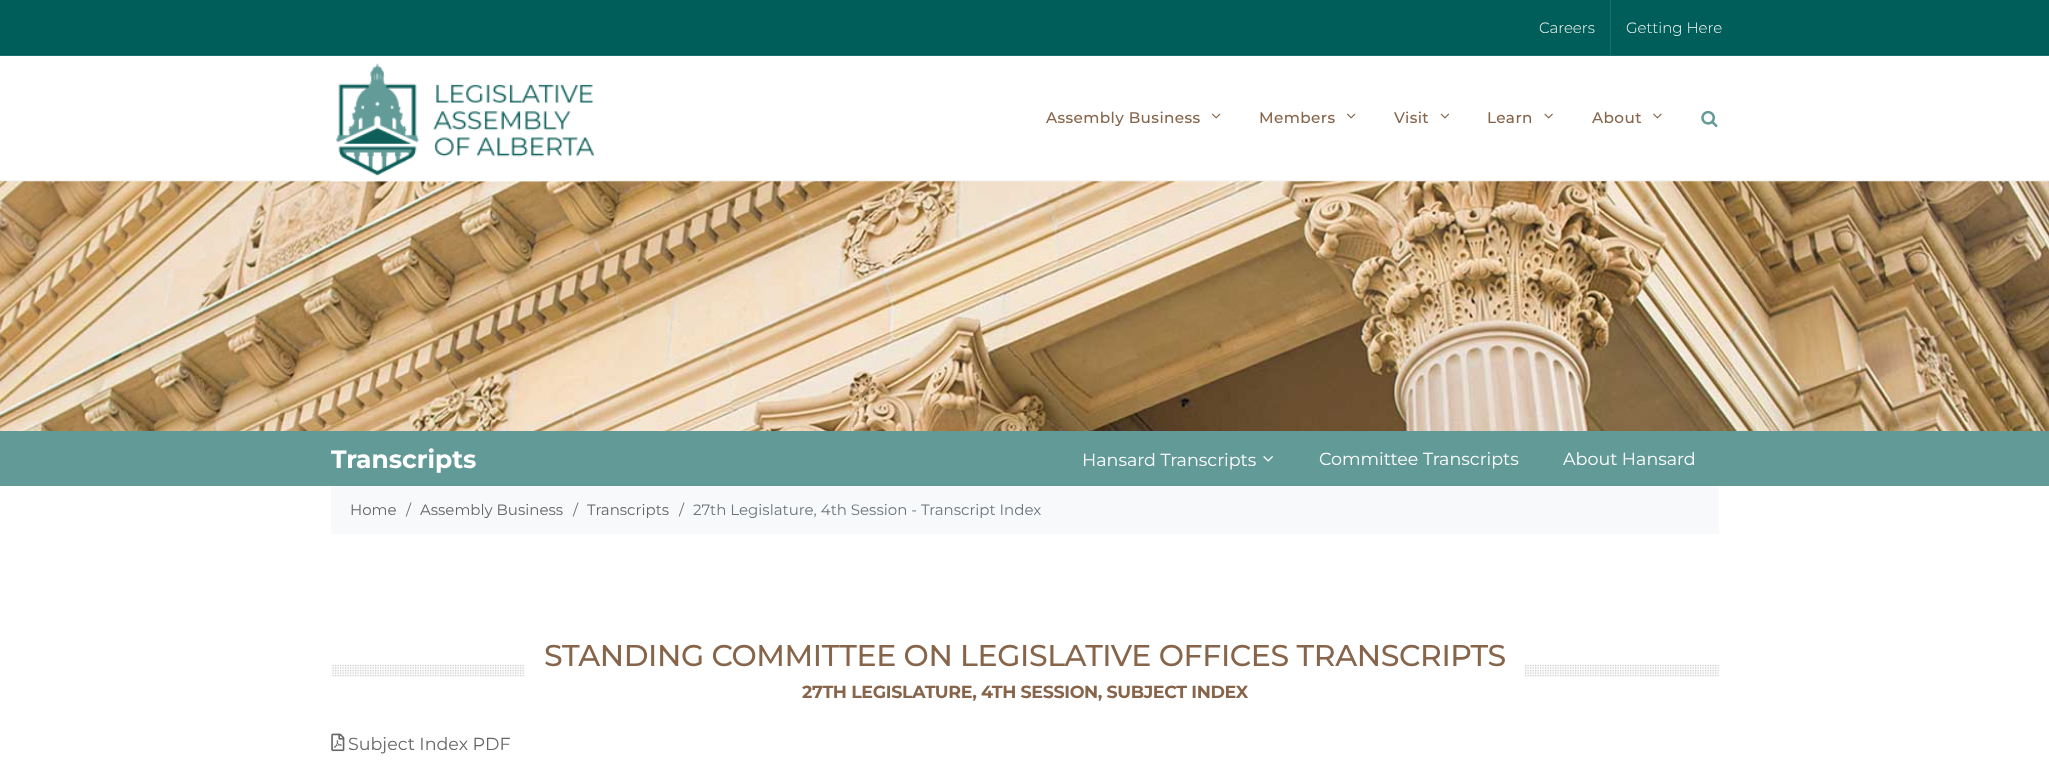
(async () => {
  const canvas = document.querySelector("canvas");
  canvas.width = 2049;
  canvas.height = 778;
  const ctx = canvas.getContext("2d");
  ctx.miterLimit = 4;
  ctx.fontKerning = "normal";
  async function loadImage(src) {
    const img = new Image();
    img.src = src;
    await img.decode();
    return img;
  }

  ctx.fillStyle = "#ffffff";
  ctx.fillRect(0, 0, 2049, 778);
  for (const [x, y, w, h, color] of [
    [0, 0, 2049, 55, "#005e5a"],
    [0, 55, 2049, 1, "#1a6e6b"],
    [1610, 0, 1, 55, "#1a6e6b"],
    [0, 180, 2049, 1, "#f5f5f5"],
  ]) {
    ctx.fillStyle = color;
    ctx.fillRect(x, y, w, h);
  }
  ctx.drawImage(await loadImage("img/7.png"), 0, 181, 2049, 250);
  ctx.drawImage(await loadImage("img/1.png"), 331, 63, 267, 119);
  ctx.drawImage(await loadImage("img/2.png"), 1212, 113, 9, 6);
  ctx.drawImage(await loadImage("img/2.png"), 1347, 113, 9, 6);
  ctx.drawImage(await loadImage("img/3.png"), 1440, 113, 10, 6);
  ctx.drawImage(await loadImage("img/4.png"), 1544, 113, 9, 6);
  ctx.drawImage(await loadImage("img/5.png"), 1653, 113, 9, 6);
  ctx.drawImage(await loadImage("img/6.png"), 1701, 110, 17, 18);
  ctx.fillStyle = "#629a97";
  ctx.fillRect(0, 431, 2049, 55);
  ctx.drawImage(await loadImage("img/8.png"), 1263, 456, 10, 6);
  ctx.fillStyle = "#f8f9fa";
  ctx.fillRect(331, 486, 1388, 48);
  ctx.drawImage(await loadImage("img/9.png"), 331, 664, 1388, 13);
  ctx.fillStyle = "#ffffff";
  ctx.fillRect(525, 664, 1000, 13);
  ctx.drawImage(await loadImage("img/10.png"), 331, 733, 14, 19);
  ctx.font = "300 15px Montserrat";
  ctx.fillStyle = "#f8f8f8";
  ctx.fillText("Careers", 1539, 33);
  ctx.fillText("Getting Here", 1626, 33);
  ctx.letterSpacing = "0.4px";
  ctx.font = "500 15.25px Montserrat";
  ctx.fillStyle = "#87654b";
  for (const [text, x, y] of [
    ["Assembly Business", 1046, 123],
    ["Members", 1259, 123],
    ["Visit", 1394, 123],
    ["Learn", 1487, 123],
    ["About", 1592, 123],
  ]) {
    ctx.fillText(text, x, y);
  }
  ctx.letterSpacing = "0px";
  ctx.font = "bold 25px Montserrat";
  ctx.fillStyle = "#ffffff";
  ctx.fillText("Transcripts", 331, 468);
  ctx.font = "17.5px Montserrat";
  for (const [text, x, y] of [
    ["Hansard Transcripts", 1082, 466],
    ["Committee Transcripts", 1319, 465],
    ["About Hansard", 1563, 465],
  ]) {
    ctx.fillText(text, x, y);
  }
  ctx.font = "15px Montserrat";
  ctx.fillStyle = "#666666";
  ctx.fillText("Home", 350, 515);
  ctx.fillStyle = "#6c757d";
  ctx.fillText("/", 406, 515);
  ctx.fillStyle = "#666666";
  ctx.fillText("Assembly Business", 420, 515);
  ctx.fillStyle = "#6c757d";
  ctx.fillText("/", 573, 515);
  ctx.fillStyle = "#666666";
  ctx.fillText("Transcripts", 587, 515);
  ctx.fillStyle = "#6c757d";
  ctx.fillText("/", 679, 515);
  ctx.fillText("27th Legislature, 4th Session - Transcript Index", 693, 515);
  ctx.letterSpacing = "-0.38px";
  ctx.font = "500 30px Montserrat";
  ctx.fillStyle = "#87654b";
  ctx.fillText("STANDING COMMITTEE ON LEGISLATIVE OFFICES TRANSCRIPTS", 544, 666);
  ctx.font = "bold 17.5px Montserrat";
  ctx.fillText("27TH LEGISLATURE, 4TH SESSION, SUBJECT INDEX", 802, 698);
  ctx.letterSpacing = "0px";
  ctx.font = "17.5px Montserrat";
  ctx.fillStyle = "#666666";
  ctx.fillText("Subject Index PDF", 348, 750);
})();
